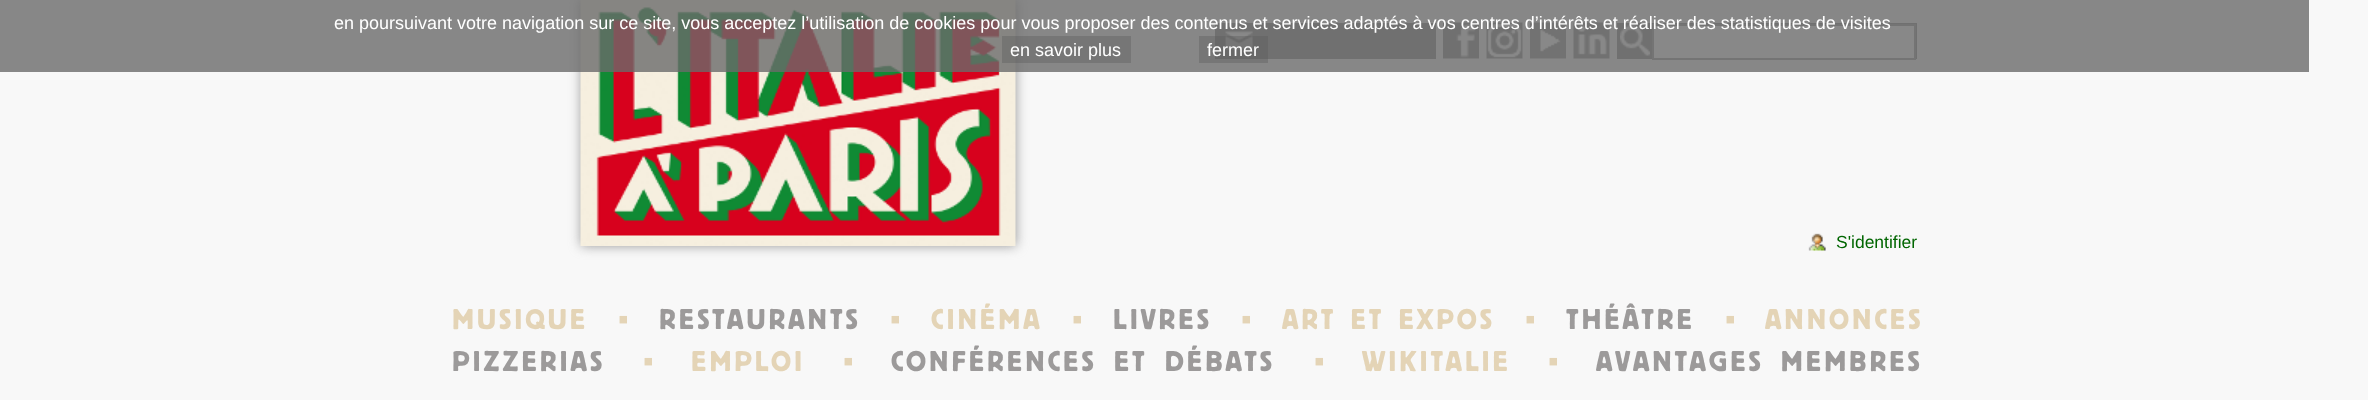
(async () => {
  const canvas = document.querySelector("canvas");
  canvas.width = 2368;
  canvas.height = 400;
  const ctx = canvas.getContext("2d");
  ctx.miterLimit = 4;
  ctx.fontKerning = "normal";
  async function loadImage(src) {
    const img = new Image();
    img.src = src;
    await img.decode();
    return img;
  }

  ctx.fillStyle = "#f8f8f8";
  ctx.fillRect(0, 0, 2368, 400);
  ctx.fillStyle = "#999999";
  ctx.filter = "blur(6px)";
  ctx.beginPath();
  ctx.rect(581, 0, 435, 246);
  ctx.fill();
  ctx.filter = "none";
  ctx.drawImage(await loadImage("img/2.png"), 580, 0, 436, 246);
  ctx.fillStyle = "#898989";
  ctx.fillRect(1215, 23, 221, 36);
  ctx.drawImage(await loadImage("img/3.png"), 1225, 31, 28, 19);
  ctx.drawImage(await loadImage("img/4.png"), 1443, 22, 36, 37);
  ctx.drawImage(await loadImage("img/5.png"), 1486, 22, 37, 37);
  ctx.drawImage(await loadImage("img/6.png"), 1530, 22, 36, 37);
  ctx.drawImage(await loadImage("img/7.png"), 1573, 22, 37, 37);
  ctx.fillRect(1617, 23, 300, 36);
  ctx.drawImage(await loadImage("img/8.png"), 1620, 25, 30, 31);
  ctx.fillStyle = "#ffffff";
  ctx.beginPath();
  ctx.rect(1653, 25, 262, 34);
  ctx.fill();
  ctx.strokeStyle = "#999999";
  ctx.lineWidth = 2;
  ctx.stroke();
  for (const [x, y, w, h, color] of [
    [0, 0, 2309, 72, "rgba(106, 106, 106, 0.8)"],
    [1002, 36, 129, 27, "rgba(92, 92, 92, 0.4)"],
    [1199, 36, 69, 27, "rgba(92, 92, 92, 0.4)"],
  ]) {
    ctx.fillStyle = color;
    ctx.fillRect(x, y, w, h);
  }
  ctx.drawImage(await loadImage("img/1.png"), 1808, 233, 18, 18);
  ctx.font = "18px Liberation Sans";
  ctx.fillStyle = "#ffffff";
  for (const [text, x, y] of [
    ["en poursuivant votre navigation sur ce site, vous acceptez l’utilisation de cookies pour vous proposer des contenus et services adaptés à vos centres d’intérêts et réaliser des statistiques de visites", 334, 29],
    ["en savoir plus", 1010, 56],
    ["fermer", 1207, 56],
  ]) {
    ctx.fillText(text, x, y);
  }
  ctx.font = "17.5px Liberation Sans";
  ctx.fillStyle = "#006600";
  ctx.fillText("S'identifier", 1836, 248);
  ctx.letterSpacing = "3px";
  ctx.font = "30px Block";
  ctx.fillStyle = "#e4d4b6";
  ctx.fillText("MUSIQUE", 452, 329);
  ctx.letterSpacing = "0px";
  ctx.font = "30px Liberation Serif";
  ctx.fillText("▪", 618, 329);
  ctx.letterSpacing = "3px";
  ctx.font = "30px Block";
  ctx.fillStyle = "#9c9a9a";
  ctx.fillText("RESTAURANTS", 659, 329);
  ctx.letterSpacing = "0px";
  ctx.font = "30px Liberation Serif";
  ctx.fillStyle = "#e4d4b6";
  ctx.fillText("▪", 890, 329);
  ctx.letterSpacing = "3px";
  ctx.font = "30px Block";
  ctx.fillText("CINÉMA", 931, 329);
  ctx.letterSpacing = "0px";
  ctx.font = "30px Liberation Serif";
  ctx.fillText("▪", 1072, 329);
  ctx.letterSpacing = "3px";
  ctx.font = "30px Block";
  ctx.fillStyle = "#9c9a9a";
  ctx.fillText("LIVRES", 1113, 329);
  ctx.letterSpacing = "0px";
  ctx.font = "30px Liberation Serif";
  ctx.fillStyle = "#e4d4b6";
  ctx.fillText("▪", 1241, 329);
  ctx.letterSpacing = "3px";
  ctx.wordSpacing = "2px";
  ctx.font = "30px Block";
  ctx.fillText("ART ET EXPOS", 1282, 329);
  ctx.letterSpacing = "0px";
  ctx.wordSpacing = "0px";
  ctx.font = "30px Liberation Serif";
  ctx.fillText("▪", 1525, 329);
  ctx.letterSpacing = "3px";
  ctx.font = "30px Block";
  ctx.fillStyle = "#9c9a9a";
  ctx.fillText("THÉÂTRE", 1566, 329);
  ctx.letterSpacing = "0px";
  ctx.font = "30px Liberation Serif";
  ctx.fillStyle = "#e4d4b6";
  ctx.fillText("▪", 1725, 329);
  ctx.letterSpacing = "3px";
  ctx.font = "30px Block";
  ctx.fillText("ANNONCES", 1765, 329);
  ctx.fillStyle = "#9c9a9a";
  ctx.fillText("PIZZERIAS", 452, 371);
  ctx.letterSpacing = "0px";
  ctx.font = "30px Liberation Serif";
  ctx.fillStyle = "#e4d4b6";
  ctx.fillText("▪", 643, 371);
  ctx.letterSpacing = "3px";
  ctx.font = "30px Block";
  ctx.fillText("EMPLOI", 691, 371);
  ctx.letterSpacing = "0px";
  ctx.font = "30px Liberation Serif";
  ctx.fillText("▪", 843, 371);
  ctx.letterSpacing = "3px";
  ctx.wordSpacing = "5px";
  ctx.font = "30px Block";
  ctx.fillStyle = "#9c9a9a";
  ctx.fillText("CONFÉRENCES ET DÉBATS", 891, 371);
  ctx.letterSpacing = "0px";
  ctx.wordSpacing = "0px";
  ctx.font = "30px Liberation Serif";
  ctx.fillStyle = "#e4d4b6";
  ctx.fillText("▪", 1314, 371);
  ctx.letterSpacing = "3px";
  ctx.font = "30px Block";
  ctx.fillText("WIKITALIE", 1362, 371);
  ctx.letterSpacing = "0px";
  ctx.font = "30px Liberation Serif";
  ctx.fillText("▪", 1548, 371);
  ctx.letterSpacing = "3px";
  ctx.wordSpacing = "5px";
  ctx.font = "30px Block";
  ctx.fillStyle = "#9c9a9a";
  ctx.fillText("AVANTAGES MEMBRES", 1596, 371);
})();
